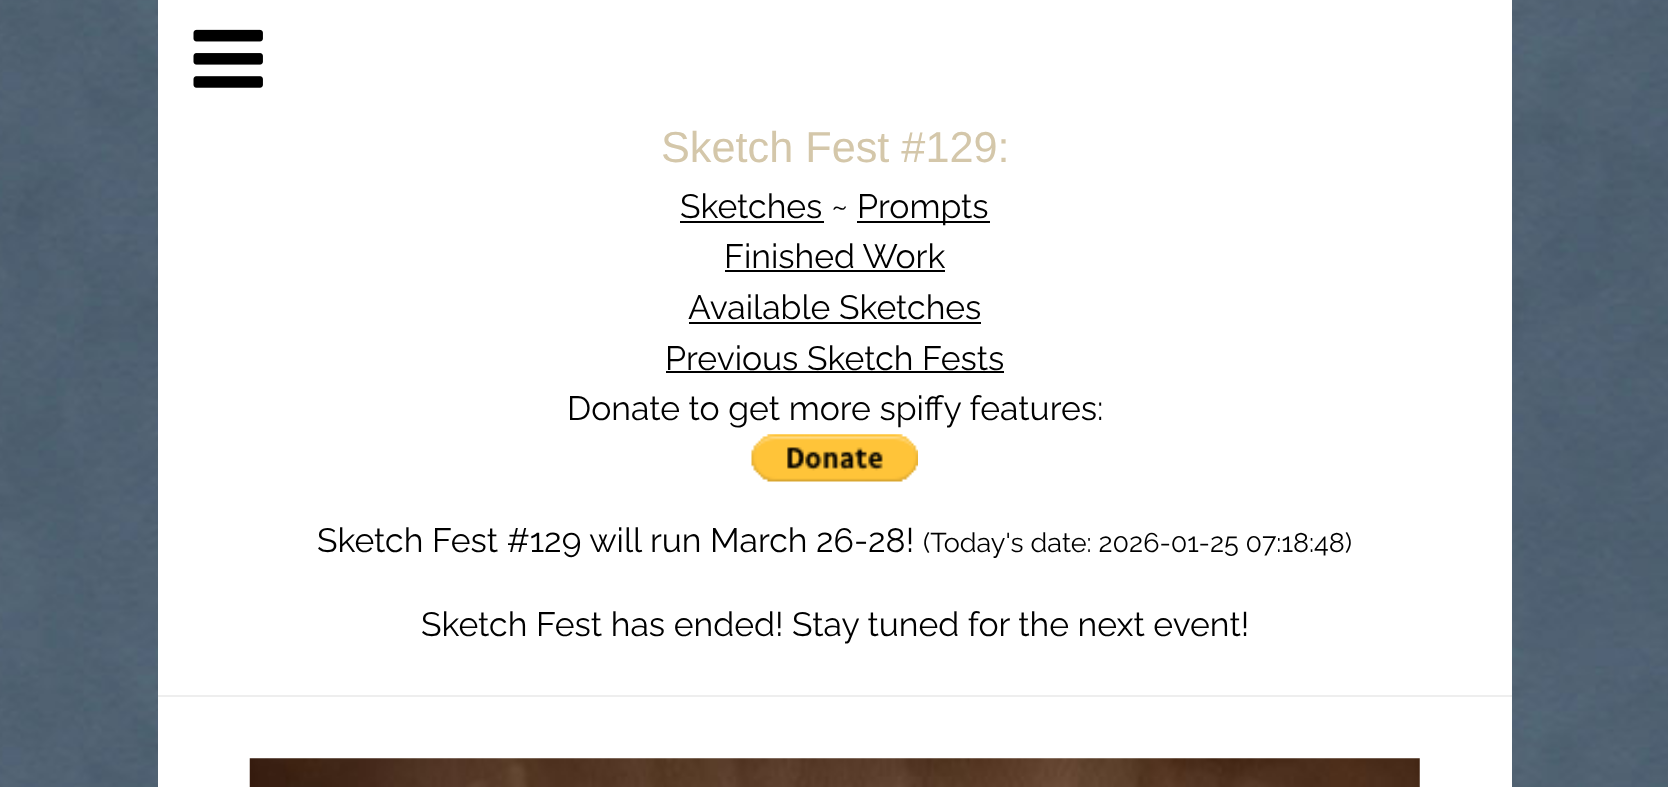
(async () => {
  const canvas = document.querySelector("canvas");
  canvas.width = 1668;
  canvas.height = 787;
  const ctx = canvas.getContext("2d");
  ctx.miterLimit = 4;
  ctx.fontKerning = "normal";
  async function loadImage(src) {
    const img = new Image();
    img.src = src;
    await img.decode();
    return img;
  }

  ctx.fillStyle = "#ffffff";
  ctx.fillRect(0, 0, 1668, 787);
  ctx.drawImage(await loadImage("img/1.png"), 0, 0, 1668, 787);
  ctx.fillRect(158, 0, 1354, 787);
  ctx.drawImage(await loadImage("img/2.png"), 193, 29, 70, 59);
  for (const [x, y, w, h, color] of [
    [680, 221, 144, 2, "#000000"],
    [857, 221, 133, 2, "#000000"],
    [725, 270, 220, 2, "#000000"],
    [689, 322, 292, 2, "#000000"],
    [666, 371, 338, 2, "#000000"],
  ]) {
    ctx.fillStyle = color;
    ctx.fillRect(x, y, w, h);
  }
  ctx.drawImage(await loadImage("img/3.png"), 751, 434, 167, 48);
  ctx.fillStyle = "#eeeeee";
  ctx.fillRect(158, 695, 1354, 2);
  ctx.drawImage(await loadImage("img/4.png"), 249, 758, 1171, 29);
  ctx.font = "43.25px Liberation Sans";
  ctx.fillStyle = "#d4c7aa";
  ctx.fillText("Sketch Fest #129:", 661, 162);
  ctx.font = "100 33.75px Raleway";
  ctx.fillStyle = "#000000";
  for (const [text, x, y] of [
    ["Sketches ~", 680, 218],
    ["Prompts", 857, 218],
    ["Finished Work", 724, 268],
    ["Available Sketches", 688, 319],
    ["Previous Sketch Fests", 665, 370],
    ["Donate to get more spiffy features:", 567, 420],
    ["Sketch Fest #129 will run March 26-28!", 317, 552],
  ]) {
    ctx.fillText(text, x, y);
  }
  ctx.font = "100 27px Raleway";
  ctx.fillText("(Today's date: 2026-01-25 07:18:48)", 923, 552);
  ctx.font = "100 33.75px Raleway";
  ctx.fillText("Sketch Fest has ended! Stay tuned for the next event!", 421, 636);
})();
